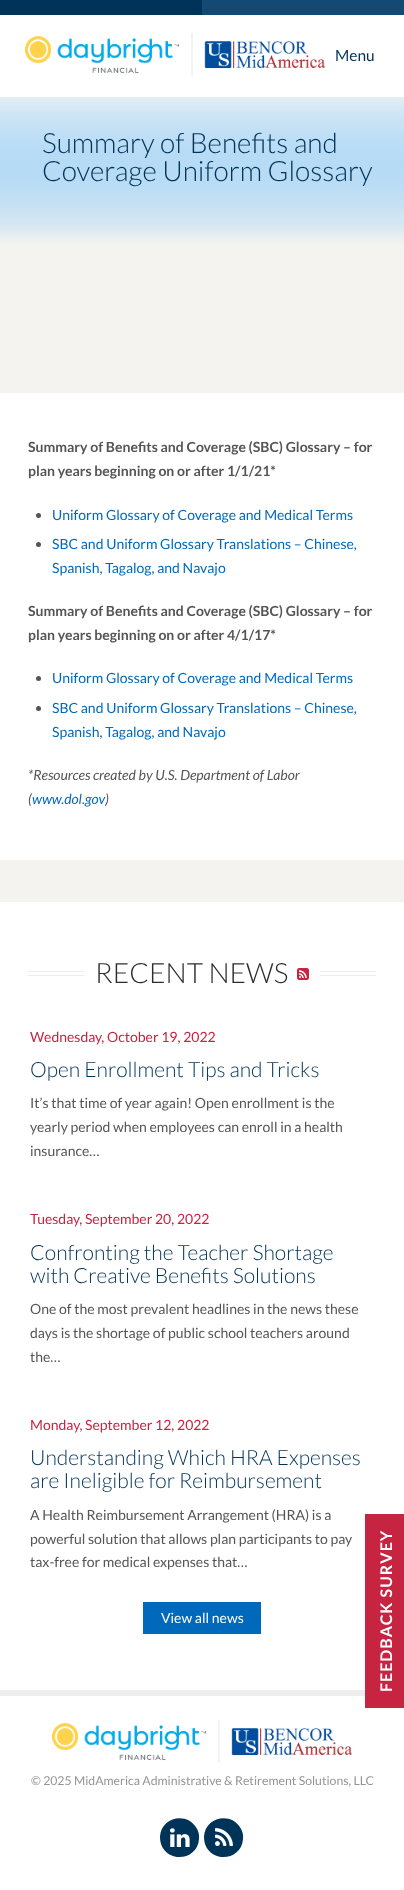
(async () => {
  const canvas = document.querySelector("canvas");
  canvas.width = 404;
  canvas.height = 1890;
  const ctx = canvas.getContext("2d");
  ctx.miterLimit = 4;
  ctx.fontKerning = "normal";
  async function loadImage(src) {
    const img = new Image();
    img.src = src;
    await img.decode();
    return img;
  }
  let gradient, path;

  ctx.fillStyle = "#003358";
  ctx.fillRect(0, 0, 404, 1890);
  ctx.fillStyle = "#134a73";
  ctx.fillRect(202, 0, 202, 15);
  ctx.fillStyle = "#ffffff";
  ctx.fillRect(0, 15, 404, 1875);
  ctx.drawImage(await loadImage("img/1.png"), 25, 33, 300, 43);
  gradient = ctx.createLinearGradient(202, 97, 202, 393);
  gradient.addColorStop(0, "#229eff");
  gradient.addColorStop(0.5, "#f4f3ef");
  ctx.fillStyle = gradient;
  ctx.fillRect(0, 98, 404, 295);
  gradient = ctx.createLinearGradient(202, 97, 202, 245);
  gradient.addColorStop(0, "#e3eef4");
  gradient.addColorStop(1, "rgba(227, 238, 244, 0)");
  ctx.fillStyle = gradient;
  ctx.fillRect(0, 97, 404, 125);
  ctx.fillStyle = "#f4f3ef";
  ctx.fillRect(0, 860, 404, 42);
  ctx.fillStyle = "#555555";
  ctx.beginPath();
  ctx.arc(38.5, 515.5, 2.5, 0, Math.PI * 2);
  ctx.fill();
  ctx.beginPath();
  ctx.arc(38.5, 544.5, 2.5, 0, Math.PI * 2);
  ctx.fill();
  ctx.beginPath();
  ctx.arc(38.5, 678.5, 2.5, 0, Math.PI * 2);
  ctx.fill();
  ctx.beginPath();
  ctx.arc(38.5, 708.5, 2.5, 0, Math.PI * 2);
  ctx.fill();
  ctx.fillStyle = "#ececec";
  ctx.fillRect(28, 971, 56, 1);
  ctx.fillRect(28, 975, 56, 1);
  ctx.drawImage(await loadImage("img/2.png"), 297, 968, 12, 12);
  for (const [x, y, w, h, color] of [
    [320, 971, 56, 1, "#ececec"],
    [320, 975, 56, 1, "#ececec"],
    [143, 1602, 118, 32, "#0069bb"],
    [365, 1514, 39, 194, "#c62441"],
    [0, 1690, 365, 6, "#eeeeee"],
  ]) {
    ctx.fillStyle = color;
    ctx.fillRect(x, y, w, h);
  }
  ctx.drawImage(await loadImage("img/3.png"), 52, 1720, 300, 43);
  ctx.fillStyle = "#003358";
  path = new Path2D("M162.5 1847.5C160.5 1844 160 1840 160 1836.5C161 1817 187 1811.5 196.5 1828C198.5 1831 199.5 1835 199 1839C198 1858 172.5 1864 162.5 1847.5Z");
  ctx.fill(path);
  ctx.drawImage(await loadImage("img/4.png"), 170, 1828, 20, 19);
  path = new Path2D("M206.5 1847.5C204.5 1844 204 1840 204 1836.5C205 1817 231 1811.5 240.5 1828C242.5 1831 243.5 1835 243 1839C242 1858 216.5 1864 206.5 1847.5Z");
  ctx.fill(path);
  ctx.drawImage(await loadImage("img/5.png"), 215, 1828, 18, 18);
  ctx.font = "15.5px Lato";
  ctx.fillText("Menu", 335, 61);
  ctx.font = "300 28px Lato";
  ctx.fillText("Summary of Benefits and", 42, 153);
  ctx.fillText("Coverage Uniform Glossary", 42, 181);
  ctx.font = "bold 14px Lato";
  ctx.fillStyle = "#555555";
  ctx.fillText("Summary of Benefits and Coverage (SBC) Glossary – for", 28, 452);
  ctx.fillText("plan years beginning on or after 1/1/21*", 28, 476);
  ctx.font = "14px Lato";
  ctx.fillStyle = "#0069bb";
  for (const [text, x, y] of [
    ["Uniform Glossary of Coverage and Medical Terms", 52, 520],
    ["SBC and Uniform Glossary Translations – Chinese,", 52, 549],
    ["Spanish, Tagalog, and Navajo", 52, 573],
  ]) {
    ctx.fillText(text, x, y);
  }
  ctx.font = "bold 14px Lato";
  ctx.fillStyle = "#555555";
  ctx.fillText("Summary of Benefits and Coverage (SBC) Glossary – for", 28, 616);
  ctx.fillText("plan years beginning on or after 4/1/17*", 28, 640);
  ctx.font = "14px Lato";
  ctx.fillStyle = "#0069bb";
  for (const [text, x, y] of [
    ["Uniform Glossary of Coverage and Medical Terms", 52, 683],
    ["SBC and Uniform Glossary Translations – Chinese,", 52, 713],
    ["Spanish, Tagalog, and Navajo", 52, 737],
  ]) {
    ctx.fillText(text, x, y);
  }
  ctx.font = "italic 14px Lato";
  ctx.fillStyle = "#555555";
  ctx.fillText("*Resources created by U.S. Department of Labor", 28, 780);
  ctx.fillText("(", 28, 804);
  ctx.fillStyle = "#0069bb";
  ctx.fillText("www.dol.gov", 32, 804);
  ctx.fillStyle = "#555555";
  ctx.fillText(")", 105, 804);
  ctx.font = "300 28px Lato";
  ctx.fillStyle = "#2c2c2c";
  ctx.fillText("RECENT NEWS", 95, 983);
  ctx.font = "14px Lato";
  ctx.fillStyle = "#c62441";
  ctx.fillText("Wednesday, October 19, 2022", 30, 1042);
  ctx.font = "300 21px Lato";
  ctx.fillStyle = "#003358";
  ctx.fillText("Open Enrollment Tips and Tricks", 30, 1077);
  ctx.font = "14px Lato";
  ctx.fillStyle = "#555555";
  for (const [text, x, y] of [
    ["It’s that time of year again! Open enrollment is the", 30, 1108],
    ["yearly period when employees can enroll in a health", 30, 1132],
    ["insurance…", 30, 1156],
  ]) {
    ctx.fillText(text, x, y);
  }
  ctx.fillStyle = "#c62441";
  ctx.fillText("Tuesday, September 20, 2022", 30, 1224);
  ctx.font = "300 21px Lato";
  ctx.fillStyle = "#003358";
  ctx.fillText("Confronting the Teacher Shortage", 30, 1260);
  ctx.fillText("with Creative Benefits Solutions", 30, 1283);
  ctx.font = "14px Lato";
  ctx.fillStyle = "#555555";
  for (const [text, x, y] of [
    ["One of the most prevalent headlines in the news these", 30, 1314],
    ["days is the shortage of public school teachers around", 30, 1338],
    ["the…", 30, 1362],
  ]) {
    ctx.fillText(text, x, y);
  }
  ctx.fillStyle = "#c62441";
  ctx.fillText("Monday, September 12, 2022", 30, 1430);
  ctx.font = "300 21px Lato";
  ctx.fillStyle = "#003358";
  ctx.fillText("Understanding Which HRA Expenses", 30, 1465);
  ctx.fillText("are Ineligible for Reimbursement", 30, 1488);
  ctx.font = "14px Lato";
  ctx.fillStyle = "#555555";
  for (const [text, x, y] of [
    ["A Health Reimbursement Arrangement (HRA) is a", 30, 1520],
    ["powerful solution that allows plan participants to pay", 30, 1544],
    ["tax-free for medical expenses that…", 30, 1567],
  ]) {
    ctx.fillText(text, x, y);
  }
  ctx.fillStyle = "#ffffff";
  ctx.fillText("View all news", 161, 1623);
  ctx.letterSpacing = "1px";
  ctx.font = "bold 16px Lato";
  ctx.save();
  ctx.translate(392, 1692);
  ctx.rotate(-90 * Math.PI / 180);
  ctx.fillText("FEEDBACK SURVEY", 0, 0);
  ctx.restore();
  ctx.letterSpacing = "0px";
  ctx.font = "12.25px Lato";
  ctx.fillStyle = "#959595";
  ctx.fillText("© 2025 MidAmerica Administrative & Retirement Solutions, LLC", 31, 1785);
})();
